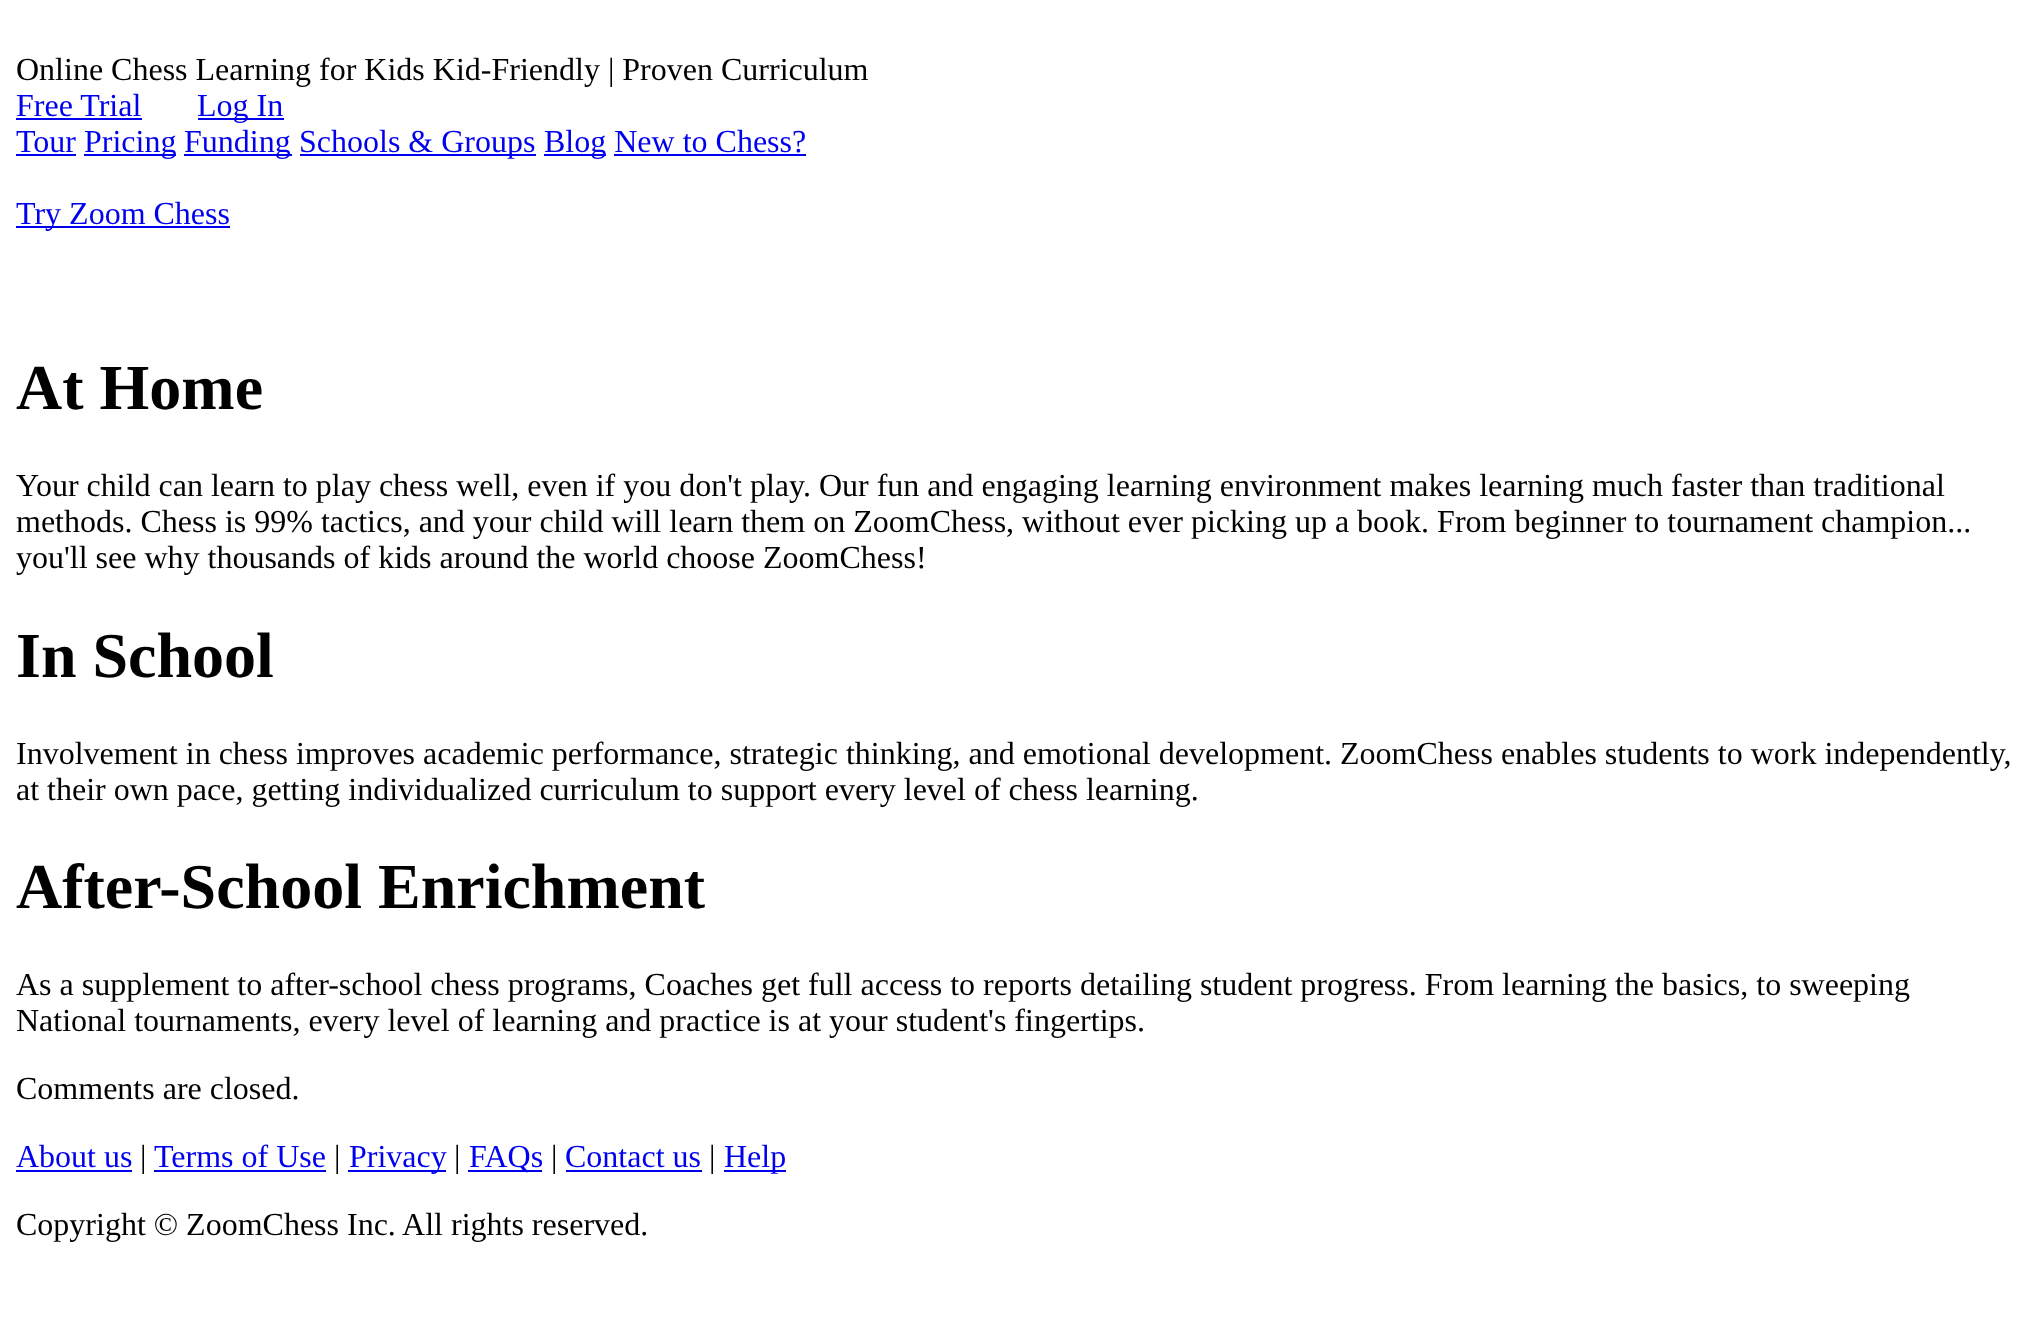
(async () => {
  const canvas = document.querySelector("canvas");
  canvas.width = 2033;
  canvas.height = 1325;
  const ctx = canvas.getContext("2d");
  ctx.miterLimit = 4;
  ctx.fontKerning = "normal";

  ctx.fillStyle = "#ffffff";
  ctx.fillRect(0, 0, 2033, 1325);
  for (const [x, y, w, h, color] of [
    [16, 118, 126, 2, "#0000ee"],
    [198, 118, 86, 2, "#0000ee"],
    [16, 154, 60, 2, "#0000ee"],
    [84, 154, 92, 2, "#0000ee"],
    [184, 154, 108, 2, "#0000ee"],
    [300, 154, 236, 2, "#0000ee"],
    [544, 154, 62, 2, "#0000ee"],
    [614, 154, 192, 2, "#0000ee"],
    [16, 226, 214, 2, "#0000ee"],
    [16, 1170, 116, 2, "#0000ee"],
    [154, 1170, 172, 2, "#0000ee"],
    [348, 1170, 98, 2, "#0000ee"],
    [468, 1170, 74, 2, "#0000ee"],
    [566, 1170, 136, 2, "#0000ee"],
    [724, 1170, 62, 2, "#0000ee"],
  ]) {
    ctx.fillStyle = color;
    ctx.fillRect(x, y, w, h);
  }
  ctx.font = "32px Liberation Serif";
  ctx.fillStyle = "#000000";
  ctx.fillText("Online Chess Learning for Kids Kid-Friendly | Proven Curriculum", 16, 80);
  ctx.fillStyle = "#0000ee";
  for (const [text, x, y] of [
    ["Free Trial", 16, 116],
    ["Log In", 197, 116],
    ["Tour", 16, 152],
    ["Pricing", 84, 152],
    ["Funding", 184, 152],
    ["Schools & Groups", 299, 152],
    ["Blog New to Chess?", 544, 152],
    ["Try Zoom Chess", 16, 224],
  ]) {
    ctx.fillText(text, x, y);
  }
  ctx.font = "bold 64px Liberation Serif";
  ctx.fillStyle = "#000000";
  ctx.fillText("At Home", 16, 409);
  ctx.font = "32px Liberation Serif";
  for (const [text, x, y] of [
    ["Your child can learn to play chess well, even if you don't play. Our fun and engaging learning environment makes learning much faster than traditional", 16, 496],
    ["methods. Chess is 99% tactics, and your child will learn them on ZoomChess, without ever picking up a book. From beginner to tournament champion...", 16, 532],
    ["you'll see why thousands of kids around the world choose ZoomChess!", 16, 568],
  ]) {
    ctx.fillText(text, x, y);
  }
  ctx.font = "bold 64px Liberation Serif";
  ctx.fillText("In School", 16, 677);
  ctx.font = "32px Liberation Serif";
  ctx.fillText("Involvement in chess improves academic performance, strategic thinking, and emotional development. ZoomChess enables students to work independently,", 16, 764);
  ctx.fillText("at their own pace, getting individualized curriculum to support every level of chess learning.", 16, 800);
  ctx.font = "bold 64px Liberation Serif";
  ctx.fillText("After-School Enrichment", 16, 908);
  ctx.font = "32px Liberation Serif";
  for (const [text, x, y] of [
    ["As a supplement to after-school chess programs, Coaches get full access to reports detailing student progress. From learning the basics, to sweeping", 16, 995],
    ["National tournaments, every level of learning and practice is at your student's fingertips.", 16, 1031],
    ["Comments are closed.", 16, 1099],
  ]) {
    ctx.fillText(text, x, y);
  }
  ctx.fillStyle = "#0000ee";
  ctx.fillText("About us", 16, 1167);
  ctx.fillStyle = "#000000";
  ctx.fillText("|", 140, 1167);
  ctx.fillStyle = "#0000ee";
  ctx.fillText("Terms of Use", 154, 1167);
  ctx.fillStyle = "#000000";
  ctx.fillText("|", 334, 1167);
  ctx.fillStyle = "#0000ee";
  ctx.fillText("Privacy", 349, 1167);
  ctx.fillStyle = "#000000";
  ctx.fillText("|", 454, 1167);
  ctx.fillStyle = "#0000ee";
  ctx.fillText("FAQs", 469, 1167);
  ctx.fillStyle = "#000000";
  ctx.fillText("|", 551, 1167);
  ctx.fillStyle = "#0000ee";
  ctx.fillText("Contact us", 565, 1167);
  ctx.fillStyle = "#000000";
  ctx.fillText("|", 709, 1167);
  ctx.fillStyle = "#0000ee";
  ctx.fillText("Help", 724, 1167);
  ctx.fillStyle = "#000000";
  ctx.fillText("Copyright © ZoomChess Inc. All rights reserved.", 16, 1235);
})();
